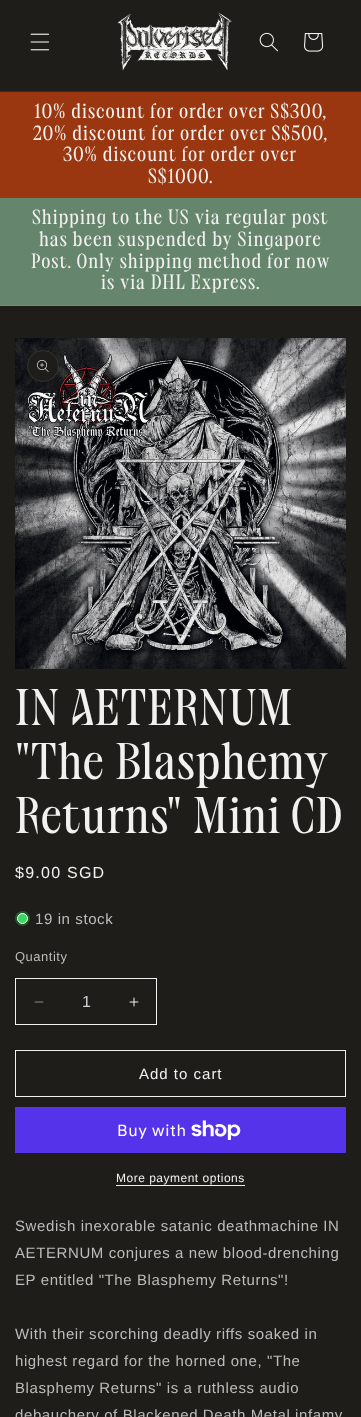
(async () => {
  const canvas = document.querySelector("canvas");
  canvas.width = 361;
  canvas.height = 1417;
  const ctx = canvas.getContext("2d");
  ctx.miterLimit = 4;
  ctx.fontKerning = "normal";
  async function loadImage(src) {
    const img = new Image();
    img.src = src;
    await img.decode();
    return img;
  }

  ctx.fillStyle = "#1e1d1a";
  ctx.fillRect(0, 0, 361, 1417);
  ctx.fillStyle = "#2f2e2b";
  ctx.fillRect(0, 91, 361, 1);
  ctx.drawImage(await loadImage("img/1.png"), 30, 33, 20, 18);
  ctx.drawImage(await loadImage("img/2.png"), 117, 12, 115, 59);
  ctx.drawImage(await loadImage("img/3.png"), 259, 32, 19, 20);
  ctx.drawImage(await loadImage("img/4.png"), 304, 33, 20, 19);
  for (const [x, y, w, h, color] of [
    [0, 92, 361, 106, "#9b3710"],
    [0, 198, 361, 107, "#66856d"],
    [0, 305, 361, 1, "#718e77"],
  ]) {
    ctx.fillStyle = color;
    ctx.fillRect(x, y, w, h);
  }
  ctx.drawImage(await loadImage("img/5.png"), 15, 338, 331, 331);
  ctx.fillStyle = "#1e1d1a";
  ctx.beginPath();
  ctx.arc(43, 366, 16, 0, Math.PI * 2);
  ctx.fill();
  ctx.beginPath();
  ctx.arc(43, 366, 15.5, 0, Math.PI * 2);
  ctx.strokeStyle = "rgba(242, 241, 239, 0.1)";
  ctx.stroke();
  ctx.drawImage(await loadImage("img/6.png"), 37, 360, 12, 12);
  ctx.fillStyle = "#28552f";
  ctx.beginPath();
  ctx.arc(22.5, 918.5, 7.5, 0, Math.PI * 2);
  ctx.fill();
  ctx.fillStyle = "#3ed660";
  ctx.beginPath();
  ctx.arc(22.5, 918.5, 5, 0, Math.PI * 2);
  ctx.fill();
  ctx.strokeStyle = "#ffffff";
  ctx.stroke();
  ctx.drawImage(await loadImage("img/7.png"), 34, 1001, 10, 2);
  ctx.drawImage(await loadImage("img/8.png"), 129, 997, 10, 10);
  ctx.strokeStyle = "#f2f1ef";
  ctx.strokeRect(15.5, 978.5, 141, 46);
  ctx.strokeRect(15.5, 1050.5, 330, 46);
  ctx.fillStyle = "#5433eb";
  ctx.fillRect(15, 1107, 331, 46);
  ctx.drawImage(await loadImage("img/9.png"), 191, 1120, 50, 20);
  ctx.fillStyle = "#f2f1ef";
  ctx.fillRect(116, 1185, 129, 1);
  ctx.letterSpacing = "1px";
  ctx.font = "18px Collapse";
  for (const [text, x, y] of [
    ["10% discount for order over S$300,", 34, 118],
    ["20% discount for order over S$500,", 33, 140],
    ["30% discount for order over", 63, 161],
    ["S$1000.", 148, 183],
    ["Shipping to the US via regular post", 32, 224],
    ["has been suspended by Singapore", 39, 246],
    ["Post. Only shipping method for now", 31, 268],
    ["is via DHL Express.", 101, 289],
  ]) {
    ctx.fillText(text, x, y);
  }
  ctx.letterSpacing = "0.9px";
  ctx.font = "45px Collapse";
  for (const [text, x, y] of [
    ["IN AETERNUM", 15, 725],
    ["\"The Blasphemy", 15, 779],
    ["Returns\" Mini CD", 15, 833],
  ]) {
    ctx.fillText(text, x, y);
  }
  ctx.letterSpacing = "1.25px";
  ctx.font = "16px Liberation Sans";
  ctx.fillText("$9.00 SGD", 15, 878);
  ctx.letterSpacing = "0.6px";
  ctx.font = "15px Liberation Sans";
  ctx.fillStyle = "#bdbcba";
  ctx.fillText("19 in stock", 35, 924);
  ctx.letterSpacing = "0.5px";
  ctx.font = "13px Liberation Sans";
  ctx.fillText("Quantity", 15, 961);
  ctx.letterSpacing = "0px";
  ctx.font = "16px Liberation Sans";
  ctx.fillStyle = "#d2d1cf";
  ctx.fillText("1", 82, 1007);
  ctx.letterSpacing = "1px";
  ctx.font = "15px Liberation Sans";
  ctx.fillStyle = "#f2f1ef";
  ctx.fillText("Add to cart", 139, 1079);
  ctx.letterSpacing = "0.6px";
  ctx.font = "16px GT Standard";
  ctx.fillStyle = "#ffffff";
  ctx.fillText("Buy with", 117, 1136);
  ctx.letterSpacing = "0.5px";
  ctx.font = "12px Liberation Sans";
  ctx.fillStyle = "#f2f1ef";
  ctx.fillText("More payment options", 116, 1182);
  ctx.letterSpacing = "0.6px";
  ctx.font = "15px Liberation Sans";
  ctx.fillStyle = "#bdbcba";
  for (const [text, x, y] of [
    ["Swedish inexorable satanic deathmachine IN", 15, 1231],
    ["AETERNUM conjures a new blood-drenching", 15, 1258],
    ["EP entitled \"The Blasphemy Returns\"!", 15, 1285],
    ["With their scorching deadly riffs soaked in", 15, 1339],
    ["highest regard for the horned one, \"The", 15, 1366],
    ["Blasphemy Returns\" is a ruthless audio", 15, 1393],
    ["debauchery of Blackened Death Metal infamy", 15, 1420],
  ]) {
    ctx.fillText(text, x, y);
  }
})();
